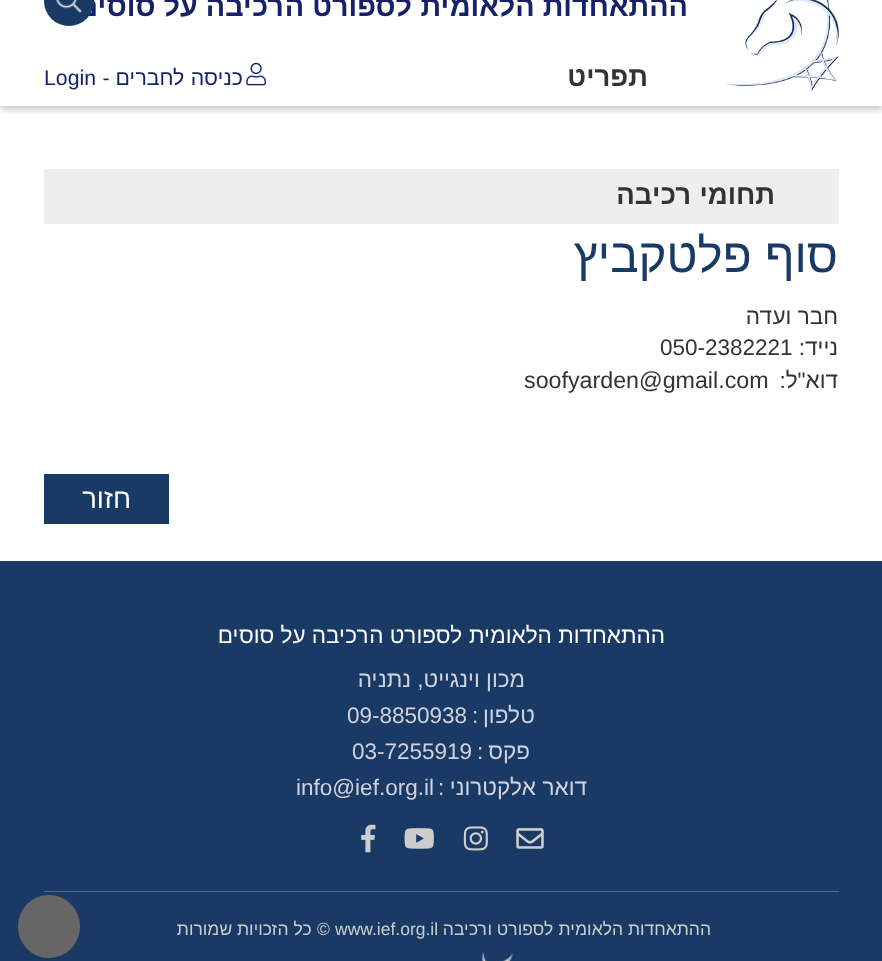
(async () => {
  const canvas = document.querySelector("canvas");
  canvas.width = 882;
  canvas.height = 961;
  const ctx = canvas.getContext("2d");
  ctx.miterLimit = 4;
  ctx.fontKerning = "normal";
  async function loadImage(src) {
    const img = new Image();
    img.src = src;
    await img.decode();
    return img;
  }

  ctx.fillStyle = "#ffffff";
  ctx.fillRect(0, 0, 882, 961);
  ctx.save();
  ctx.beginPath();
  ctx.rect(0, 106, 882, 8);
  ctx.clip();
  ctx.fillStyle = "rgba(0, 0, 0, 0.2)";
  ctx.filter = "blur(3px)";
  ctx.beginPath();
  ctx.rect(0, -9, 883, 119);
  ctx.fill();
  ctx.filter = "none";
  ctx.restore();
  ctx.drawImage(await loadImage("img/1.png"), 726, 0, 113, 91);
  ctx.drawImage(await loadImage("img/3.png"), 246, 62, 20, 24);
  for (const [x, y, w, h, color] of [
    [44, 169, 795, 55, "#eeeeee"],
    [44, 474, 125, 50, "#1a3a66"],
    [0, 561, 882, 400, "#1a3a66"],
    [44, 891, 795, 1, "#50698b"],
  ]) {
    ctx.fillStyle = color;
    ctx.fillRect(x, y, w, h);
  }
  ctx.drawImage(await loadImage("img/4.png"), 516, 828, 28, 21);
  ctx.drawImage(await loadImage("img/5.png"), 463, 826, 25, 25);
  ctx.drawImage(await loadImage("img/6.png"), 404, 828, 30, 21);
  ctx.drawImage(await loadImage("img/7.png"), 361, 824, 15, 29);
  ctx.drawImage(await loadImage("img/8.png"), 482, 952, 31, 9);
  ctx.fillStyle = "#666666";
  ctx.beginPath();
  ctx.roundRect(18, 895, 62, 63, 31);
  ctx.fill();
  ctx.direction = "rtl";
  ctx.font = "bold 28.75px Arimo";
  ctx.fillStyle = "#16216a";
  ctx.fillText("ההתאחדות הלאומית לספורט הרכיבה על סוסים", 688, 16);
  ctx.fillStyle = "#1a3a66";
  ctx.beginPath();
  ctx.arc(69, 1, 25, 0, Math.PI * 2);
  ctx.fill();
  ctx.drawImage(await loadImage("img/2.png"), 56, 0, 26, 13);
  ctx.font = "21.25px Arimo";
  ctx.fillStyle = "#16216a";
  ctx.fillText("כניסה לחברים -", 243, 85);
  ctx.direction = "ltr";
  ctx.fillText("Login", 44, 85);
  ctx.direction = "rtl";
  ctx.font = "bold 27.5px Arimo";
  ctx.fillStyle = "#333333";
  ctx.fillText("תפריט", 648, 86);
  ctx.fillText("תחומי רכיבה", 775, 204);
  ctx.font = "47.5px Arimo";
  ctx.fillStyle = "#1a3a66";
  ctx.fillText("סוף פלטקביץ", 838, 272);
  ctx.font = "22.5px Arimo";
  ctx.fillStyle = "#333333";
  ctx.fillText("חבר ועדה", 838, 324);
  ctx.fillText("נייד:", 838, 355);
  ctx.direction = "ltr";
  ctx.fillText("050-2382221", 660, 355);
  ctx.direction = "rtl";
  ctx.fillText("דוא\"ל:", 838, 388);
  ctx.direction = "ltr";
  ctx.font = "23.25px Arimo";
  ctx.fillText("soofyarden@gmail.com", 524, 388);
  ctx.direction = "rtl";
  ctx.font = "27.5px Arimo";
  ctx.fillStyle = "#ffffff";
  ctx.fillText("חזור", 131, 508);
  ctx.font = "22.5px Arimo";
  ctx.fillText("ההתאחדות הלאומית לספורט הרכיבה על סוסים", 665, 643);
  ctx.fillStyle = "#d2d2de";
  ctx.fillText("מכון וינגייט, נתניה", 525, 687);
  ctx.fillText("טלפון", 535, 723);
  ctx.direction = "ltr";
  ctx.fillText(":", 472, 723);
  ctx.fillText("09-8850938", 347, 723);
  ctx.direction = "rtl";
  ctx.fillText("פקס", 530, 759);
  ctx.direction = "ltr";
  ctx.fillText(":", 477, 759);
  ctx.fillText("03-7255919", 352, 759);
  ctx.direction = "rtl";
  ctx.fillText("דואר אלקטרוני", 587, 795);
  ctx.direction = "ltr";
  ctx.fillText(":", 438, 795);
  ctx.fillText("info@ief.org.il", 296, 795);
  ctx.direction = "rtl";
  ctx.font = "17.5px Arimo";
  ctx.fillStyle = "#cdcdcd";
  ctx.fillText("ההתאחדות הלאומית לספורט ורכיבה", 711, 935);
  ctx.direction = "ltr";
  ctx.fillText("www.ief.org.il", 335, 935);
  ctx.fillText("©", 317, 935);
  ctx.direction = "rtl";
  ctx.fillText("כל הזכויות שמורות", 312, 935);
})();
